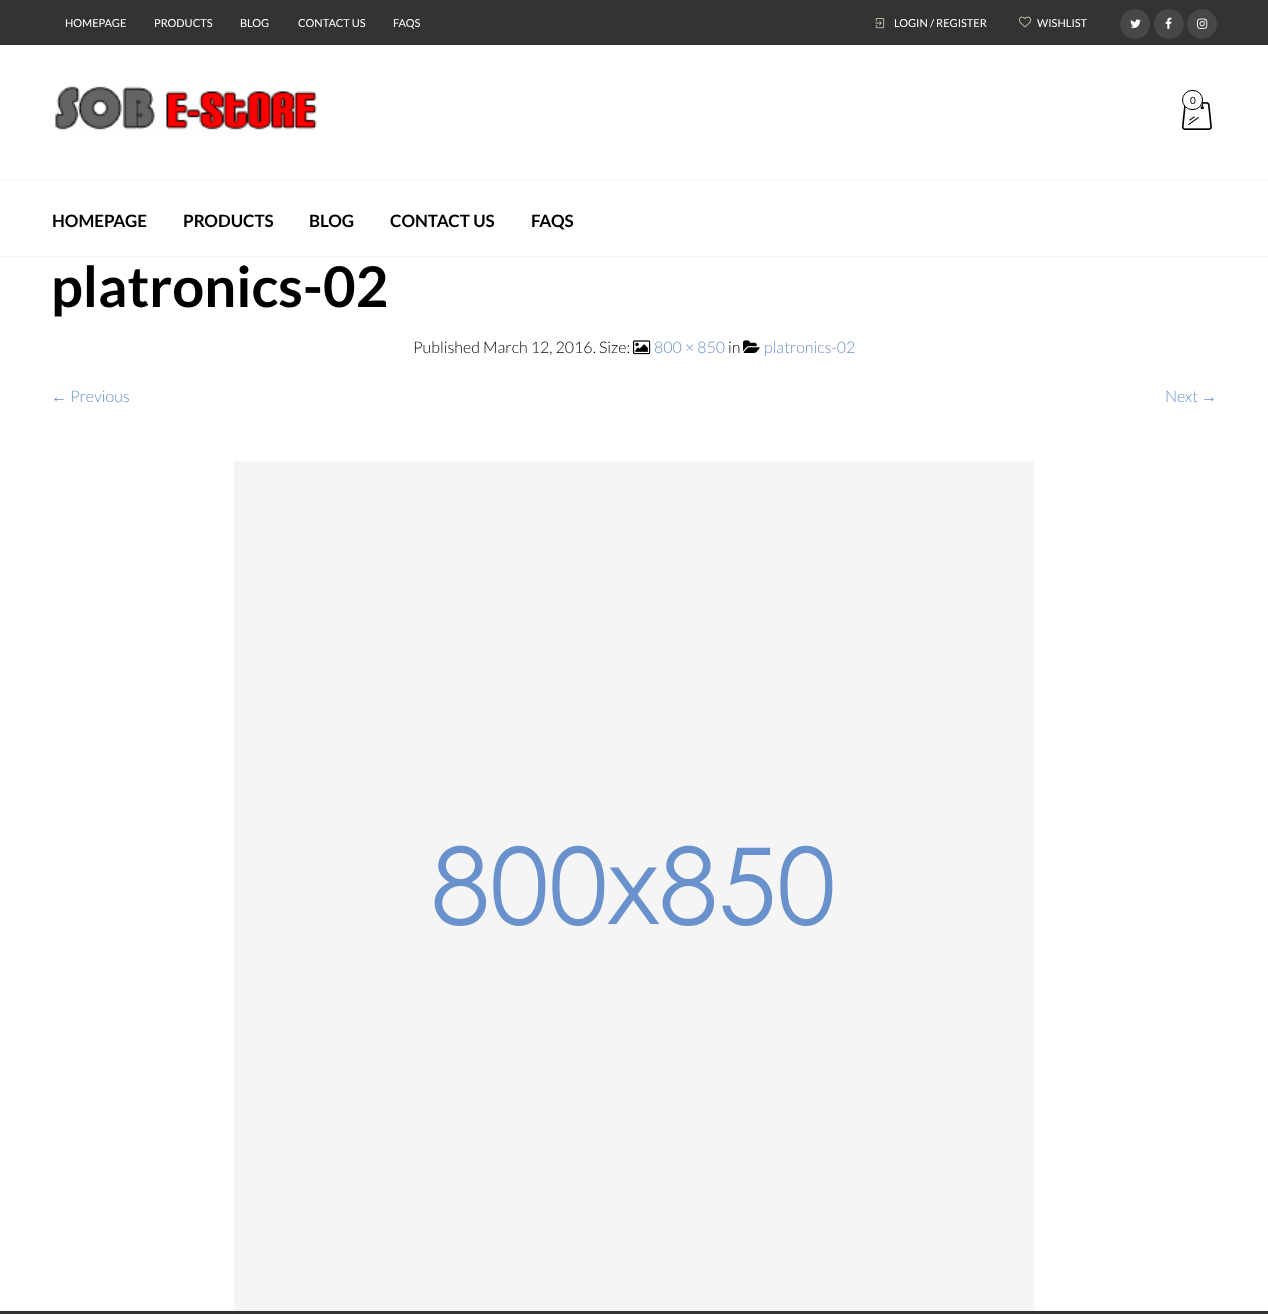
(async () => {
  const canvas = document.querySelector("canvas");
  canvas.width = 1268;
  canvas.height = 1314;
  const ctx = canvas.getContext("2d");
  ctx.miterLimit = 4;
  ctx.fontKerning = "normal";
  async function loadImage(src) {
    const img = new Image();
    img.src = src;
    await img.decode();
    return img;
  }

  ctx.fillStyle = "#ffffff";
  ctx.fillRect(0, 0, 1268, 1314);
  ctx.fillStyle = "#333333";
  ctx.fillRect(0, 0, 1268, 45);
  ctx.drawImage(await loadImage("img/1.png"), 875, 18, 10, 11);
  ctx.drawImage(await loadImage("img/2.png"), 1018, 16, 14, 12);
  ctx.fillStyle = "#474747";
  ctx.beginPath();
  ctx.arc(1135, 24, 15, 0, Math.PI * 2);
  ctx.fill();
  ctx.drawImage(await loadImage("img/3.png"), 1130, 19, 11, 9);
  ctx.beginPath();
  ctx.arc(1169, 24, 15, 0, Math.PI * 2);
  ctx.fill();
  ctx.drawImage(await loadImage("img/4.png"), 1165, 17, 7, 12);
  ctx.beginPath();
  ctx.arc(1202, 24, 15, 0, Math.PI * 2);
  ctx.fill();
  ctx.drawImage(await loadImage("img/5.png"), 1197, 18, 11, 11);
  ctx.drawImage(await loadImage("img/6.png"), 55, 86, 262, 49);
  ctx.drawImage(await loadImage("img/7.png"), 1181, 96, 31, 34);
  ctx.fillStyle = "#ffffff";
  ctx.beginPath();
  ctx.roundRect(1182.5, 90.5, 20, 19, 9.5);
  ctx.fill();
  ctx.strokeStyle = "#000000";
  ctx.stroke();
  ctx.fillStyle = "#f5f5f5";
  ctx.fillRect(0, 180, 1268, 1);
  ctx.fillRect(0, 256, 1268, 1);
  ctx.drawImage(await loadImage("img/8.png"), 633, 340, 18, 15);
  ctx.drawImage(await loadImage("img/9.png"), 743, 340, 17, 13);
  ctx.drawImage(await loadImage("img/10.png"), 234, 461, 800, 850);
  ctx.fillStyle = "#333333";
  ctx.fillRect(0, 1311, 1268, 3);
  ctx.font = "11px Lato";
  ctx.fillStyle = "#ffffff";
  for (const [text, x, y] of [
    ["HOMEPAGE", 65, 27],
    ["PRODUCTS", 154, 27],
    ["BLOG", 240, 27],
    ["CONTACT US", 298, 27],
    ["FAQS", 393, 27],
    ["LOGIN / REGISTER", 894, 27],
    ["WISHLIST", 1037, 27],
  ]) {
    ctx.fillText(text, x, y);
  }
  ctx.font = "10px Lato";
  ctx.fillStyle = "#000000";
  ctx.fillText("0", 1190, 104);
  ctx.font = "bold 17px Lato";
  for (const [text, x, y] of [
    ["HOMEPAGE", 52, 227],
    ["PRODUCTS", 183, 227],
    ["BLOG", 309, 227],
    ["CONTACT US", 390, 227],
    ["FAQS", 531, 227],
  ]) {
    ctx.fillText(text, x, y);
  }
  ctx.font = "bold 56.25px Lato";
  ctx.fillText("platronics-02", 51, 307);
  ctx.font = "300 16px Lato";
  ctx.fillText("Published March 12, 2016. Size:", 413, 353);
  ctx.fillStyle = "#6990cb";
  ctx.fillText("800 × 850", 654, 353);
  ctx.fillStyle = "#000000";
  ctx.fillText("in", 728, 353);
  ctx.fillStyle = "#6990cb";
  ctx.fillText("platronics-02", 764, 353);
  ctx.font = "16px Liberation Serif";
  ctx.fillText("←", 51, 402);
  ctx.font = "300 16px Lato";
  ctx.fillText("Previous", 70, 402);
  ctx.fillText("Next", 1165, 402);
  ctx.font = "16px Liberation Serif";
  ctx.fillText("→", 1201, 402);
})();
